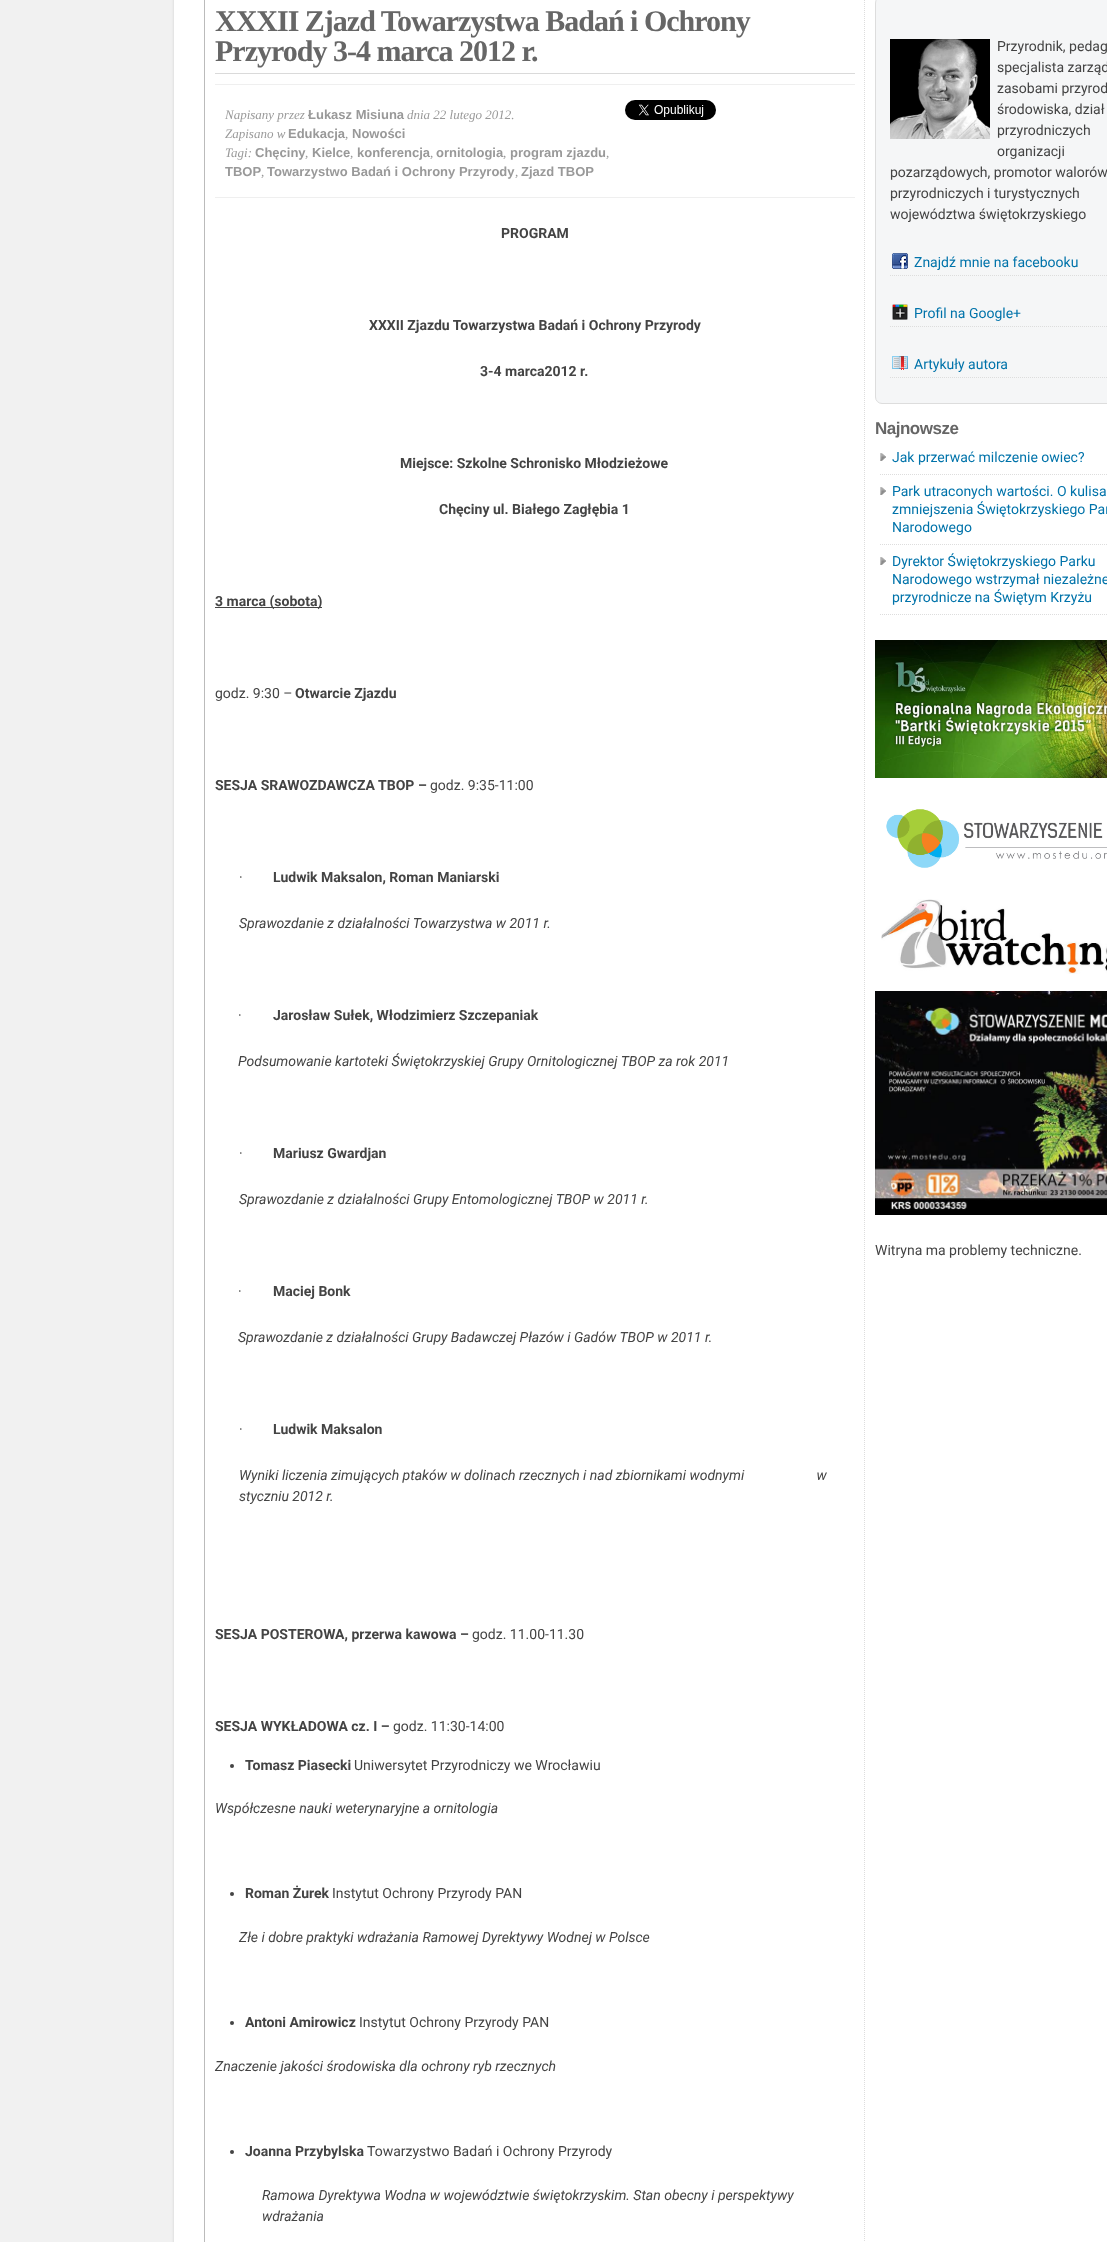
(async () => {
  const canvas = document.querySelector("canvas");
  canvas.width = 1107;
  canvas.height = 2242;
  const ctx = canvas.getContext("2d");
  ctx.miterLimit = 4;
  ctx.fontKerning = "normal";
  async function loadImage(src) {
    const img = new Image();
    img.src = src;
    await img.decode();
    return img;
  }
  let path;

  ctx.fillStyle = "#f1f1f1";
  ctx.fillRect(0, 0, 1107, 2242);
  ctx.fillStyle = "rgba(0, 0, 0, 0.13)";
  ctx.filter = "blur(1.5px)";
  ctx.beginPath();
  ctx.rect(174, -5, 760, 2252);
  ctx.fill();
  ctx.filter = "none";
  for (const [x, y, w, h, color] of [
    [174, 0, 30, 2242, "#ffffff"],
    [205, 0, 902, 2242, "#ffffff"],
    [204, 0, 1, 2242, "#bbbbbb"],
  ]) {
    ctx.fillStyle = color;
    ctx.fillRect(x, y, w, h);
  }
  path = new Path2D("M864.5-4V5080");
  ctx.strokeStyle = "#dddddd";
  ctx.setLineDash([1, 1]);
  ctx.stroke(path);
  for (const [x, y, w, h, color] of [
    [215, 73, 640, 1, "#dadada"],
    [215, 84, 640, 1, "#efefef"],
    [215, 197, 640, 1, "#efefef"],
  ]) {
    ctx.fillStyle = color;
    ctx.fillRect(x, y, w, h);
  }
  ctx.drawImage(await loadImage("img/1.png"), 625, 100, 91, 20);
  ctx.fillStyle = "#444444";
  ctx.fillRect(215, 607, 107, 1);
  ctx.beginPath();
  ctx.arc(232, 1766, 2, 0, Math.PI * 2);
  ctx.fill();
  ctx.beginPath();
  ctx.arc(232, 1894, 2, 0, Math.PI * 2);
  ctx.fill();
  ctx.beginPath();
  ctx.arc(232, 2023, 2, 0, Math.PI * 2);
  ctx.fill();
  ctx.beginPath();
  ctx.arc(232, 2152, 2, 0, Math.PI * 2);
  ctx.fill();
  ctx.fillStyle = "#f5f6f7";
  ctx.beginPath();
  ctx.roundRect(875.5, -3.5, 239, 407, 6.5);
  ctx.fill();
  ctx.setLineDash([]);
  ctx.stroke();
  ctx.drawImage(await loadImage("img/2.png"), 890, 39, 100, 100);
  ctx.drawImage(await loadImage("img/3.png"), 892, 253, 16, 16);
  path = new Path2D("M890 275.5H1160");
  ctx.setLineDash([1, 1]);
  ctx.stroke(path);
  ctx.drawImage(await loadImage("img/4.png"), 892, 304, 16, 16);
  path = new Path2D("M890 326.5H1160");
  ctx.stroke(path);
  ctx.drawImage(await loadImage("img/5.png"), 892, 356, 16, 14);
  path = new Path2D("M890 377.5H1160");
  ctx.stroke(path);
  ctx.drawImage(await loadImage("img/6.png"), 880, 453, 6, 8);
  path = new Path2D("M880 474.5H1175");
  ctx.stroke(path);
  ctx.drawImage(await loadImage("img/6.png"), 880, 487, 6, 8);
  path = new Path2D("M880 544.5H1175");
  ctx.stroke(path);
  ctx.drawImage(await loadImage("img/6.png"), 880, 557, 6, 8);
  path = new Path2D("M880 614.5H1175");
  ctx.stroke(path);
  ctx.drawImage(await loadImage("img/7.png"), 875, 640, 232, 138);
  ctx.drawImage(await loadImage("img/8.png"), 886, 809, 221, 59);
  ctx.drawImage(await loadImage("img/9.png"), 881, 899, 226, 75);
  ctx.drawImage(await loadImage("img/10.png"), 875, 991, 232, 224);
  ctx.letterSpacing = "-1px";
  ctx.font = "bold 30px Liberation Serif";
  ctx.fillStyle = "#666666";
  ctx.fillText("XXXII Zjazd Towarzystwa Badań i Ochrony", 215, 31);
  ctx.fillText("Przyrody 3-4 marca 2012 r.", 215, 61);
  ctx.letterSpacing = "0px";
  ctx.font = "italic 13px Liberation Serif";
  ctx.fillStyle = "#999999";
  ctx.fillText("Napisany przez", 225, 119);
  ctx.font = "bold 13px Liberation Sans";
  ctx.fillText("Łukasz Misiuna", 308, 119);
  ctx.font = "italic 13px Liberation Serif";
  ctx.fillText("dnia 22 lutego 2012.", 407, 119);
  ctx.fillText("Zapisano w", 225, 138);
  ctx.font = "bold 13px Liberation Sans";
  ctx.fillText("Edukacja", 288, 138);
  ctx.font = "italic 13px Liberation Serif";
  ctx.fillText(",", 345, 138);
  ctx.font = "bold 13px Liberation Sans";
  ctx.fillText("Nowości", 352, 138);
  ctx.font = "italic 13px Liberation Serif";
  ctx.fillText("Tagi:", 225, 157);
  ctx.font = "bold 13px Liberation Sans";
  ctx.fillText("Chęciny", 255, 157);
  ctx.font = "italic 13px Liberation Serif";
  ctx.fillText(",", 305, 157);
  ctx.font = "bold 13px Liberation Sans";
  ctx.fillText("Kielce", 312, 157);
  ctx.font = "italic 13px Liberation Serif";
  ctx.fillText(",", 350, 157);
  ctx.font = "bold 13px Liberation Sans";
  ctx.fillText("konferencja", 357, 157);
  ctx.font = "italic 13px Liberation Serif";
  ctx.fillText(",", 430, 157);
  ctx.font = "bold 13px Liberation Sans";
  ctx.fillText("ornitologia", 436, 157);
  ctx.font = "italic 13px Liberation Serif";
  ctx.fillText(",", 503, 157);
  ctx.font = "bold 13px Liberation Sans";
  ctx.fillText("program zjazdu", 510, 157);
  ctx.font = "italic 13px Liberation Serif";
  ctx.fillText(",", 606, 157);
  ctx.font = "bold 13px Liberation Sans";
  ctx.fillText("TBOP", 225, 176);
  ctx.font = "italic 13px Liberation Serif";
  ctx.fillText(",", 261, 176);
  ctx.font = "bold 13px Liberation Sans";
  ctx.fillText("Towarzystwo Badań i Ochrony Przyrody", 267, 176);
  ctx.font = "italic 13px Liberation Serif";
  ctx.fillText(",", 515, 176);
  ctx.font = "bold 13px Liberation Sans";
  ctx.fillText("Zjazd TBOP", 521, 176);
  ctx.font = "bold 14px Roboto";
  ctx.fillStyle = "#444444";
  for (const [text, x, y] of [
    ["PROGRAM", 501, 238],
    ["XXXII Zjazdu Towarzystwa Badań i Ochrony Przyrody", 369, 330],
    ["3-4 marca2012 r.", 480, 376],
    ["Miejsce: Szkolne Schronisko Młodzieżowe", 400, 468],
    ["Chęciny ul. Białego Zagłębia 1", 439, 514],
    ["3 marca (sobota)", 215, 606],
  ]) {
    ctx.fillText(text, x, y);
  }
  ctx.font = "14px Roboto";
  ctx.fillText("godz. 9:30 –", 215, 698);
  ctx.font = "bold 14px Roboto";
  ctx.fillText("Otwarcie Zjazdu", 295, 698);
  ctx.fillText("SESJA SRAWOZDAWCZA TBOP –", 215, 790);
  ctx.font = "14px Roboto";
  ctx.fillText("godz. 9:35-11:00", 430, 790);
  ctx.fillText("·", 239, 882);
  ctx.font = "bold 14px Roboto";
  ctx.fillText("Ludwik Maksalon, Roman Maniarski", 273, 882);
  ctx.font = "italic 14px Roboto";
  ctx.fillText("Sprawozdanie z działalności Towarzystwa w 2011 r.", 239, 928);
  ctx.font = "14px Roboto";
  ctx.fillText("·", 238, 1020);
  ctx.font = "bold 14px Roboto";
  ctx.fillText("Jarosław Sułek, Włodzimierz Szczepaniak", 273, 1020);
  ctx.font = "italic 14px Roboto";
  ctx.fillText("Podsumowanie kartoteki Świętokrzyskiej Grupy Ornitologicznej TBOP za rok 2011", 238, 1066);
  ctx.font = "14px Roboto";
  ctx.fillText("·", 239, 1158);
  ctx.font = "bold 14px Roboto";
  ctx.fillText("Mariusz Gwardjan", 273, 1158);
  ctx.font = "italic 14px Roboto";
  ctx.fillText("Sprawozdanie z działalności Grupy Entomologicznej TBOP w 2011 r.", 239, 1204);
  ctx.font = "14px Roboto";
  ctx.fillText("·", 238, 1296);
  ctx.font = "bold 14px Roboto";
  ctx.fillText("Maciej Bonk", 273, 1296);
  ctx.font = "italic 14px Roboto";
  ctx.fillText("Sprawozdanie z działalności Grupy Badawczej Płazów i Gadów TBOP w 2011 r.", 238, 1342);
  ctx.font = "14px Roboto";
  ctx.fillText("·", 239, 1434);
  ctx.font = "bold 14px Roboto";
  ctx.fillText("Ludwik Maksalon", 273, 1434);
  ctx.font = "italic 14px Roboto";
  ctx.fillText("Wyniki liczenia zimujących ptaków w dolinach rzecznych i nad zbiornikami wodnymi                     w", 239, 1480);
  ctx.fillText("styczniu 2012 r.", 239, 1501);
  ctx.font = "bold 14px Roboto";
  ctx.fillText("SESJA POSTEROWA, przerwa kawowa –", 215, 1639);
  ctx.font = "14px Roboto";
  ctx.fillText("godz. 11.00-11.30", 472, 1639);
  ctx.font = "bold 14px Roboto";
  ctx.fillText("SESJA WYKŁADOWA cz. I –", 215, 1731);
  ctx.font = "14px Roboto";
  ctx.fillText("godz. 11:30-14:00", 393, 1731);
  ctx.font = "bold 14px Roboto";
  ctx.fillText("Tomasz Piasecki", 245, 1770);
  ctx.font = "14px Roboto";
  ctx.fillText("Uniwersytet Przyrodniczy we Wrocławiu", 354, 1770);
  ctx.font = "italic 14px Roboto";
  ctx.fillText("Współczesne nauki weterynaryjne a ornitologia", 215, 1813);
  ctx.font = "bold 14px Roboto";
  ctx.fillText("Roman Żurek", 245, 1898);
  ctx.font = "14px Roboto";
  ctx.fillText("Instytut Ochrony Przyrody PAN", 332, 1898);
  ctx.font = "italic 14px Roboto";
  ctx.fillText("Złe i dobre praktyki wdrażania Ramowej Dyrektywy Wodnej w Polsce", 239, 1942);
  ctx.font = "bold 14px Roboto";
  ctx.fillText("Antoni Amirowicz", 245, 2027);
  ctx.font = "14px Roboto";
  ctx.fillText("Instytut Ochrony Przyrody PAN", 359, 2027);
  ctx.font = "italic 14px Roboto";
  ctx.fillText("Znaczenie jakości środowiska dla ochrony ryb rzecznych", 215, 2071);
  ctx.font = "bold 14px Roboto";
  ctx.fillText("Joanna Przybylska", 245, 2156);
  ctx.font = "14px Roboto";
  ctx.fillText("Towarzystwo Badań i Ochrony Przyrody", 367, 2156);
  ctx.font = "italic 14px Roboto";
  ctx.fillText("Ramowa Dyrektywa Wodna w województwie świętokrzyskim. Stan obecny i perspektywy", 262, 2200);
  ctx.fillText("wdrażania", 262, 2221);
  ctx.font = "14px Roboto";
  for (const [text, x, y] of [
    ["Przyrodnik, pedag", 997, 51],
    ["specjalista zarząd", 997, 72],
    ["zasobami przyrod", 997, 93],
    ["środowiska, dział", 997, 114],
    ["przyrodniczych", 997, 135],
    ["organizacji", 997, 156],
    ["pozarządowych, promotor walorów", 890, 177],
    ["przyrodniczych i turystycznych", 890, 198],
    ["województwa świętokrzyskiego", 890, 219],
  ]) {
    ctx.fillText(text, x, y);
  }
  ctx.fillStyle = "#0073aa";
  for (const [text, x, y] of [
    ["Znajdź mnie na facebooku", 914, 267],
    ["Profil na Google+", 914, 318],
    ["Artykuły autora", 914, 369],
  ]) {
    ctx.fillText(text, x, y);
  }
  ctx.letterSpacing = "-0.5px";
  ctx.font = "bold 17px Liberation Sans";
  ctx.fillStyle = "#666666";
  ctx.fillText("Najnowsze", 875, 434);
  ctx.letterSpacing = "0px";
  ctx.font = "14px Roboto";
  ctx.fillStyle = "#0073aa";
  for (const [text, x, y] of [
    ["Jak przerwać milczenie owiec?", 892, 462],
    ["Park utraconych wartości. O kulisa", 892, 496],
    ["zmniejszenia Świętokrzyskiego Par", 892, 514],
    ["Narodowego", 892, 532],
    ["Dyrektor Świętokrzyskiego Parku", 892, 566],
    ["Narodowego wstrzymał niezależne", 892, 584],
    ["przyrodnicze na Świętym Krzyżu", 892, 602],
  ]) {
    ctx.fillText(text, x, y);
  }
  ctx.fillStyle = "#444444";
  ctx.fillText("Witryna ma problemy techniczne.", 875, 1255);
})();
